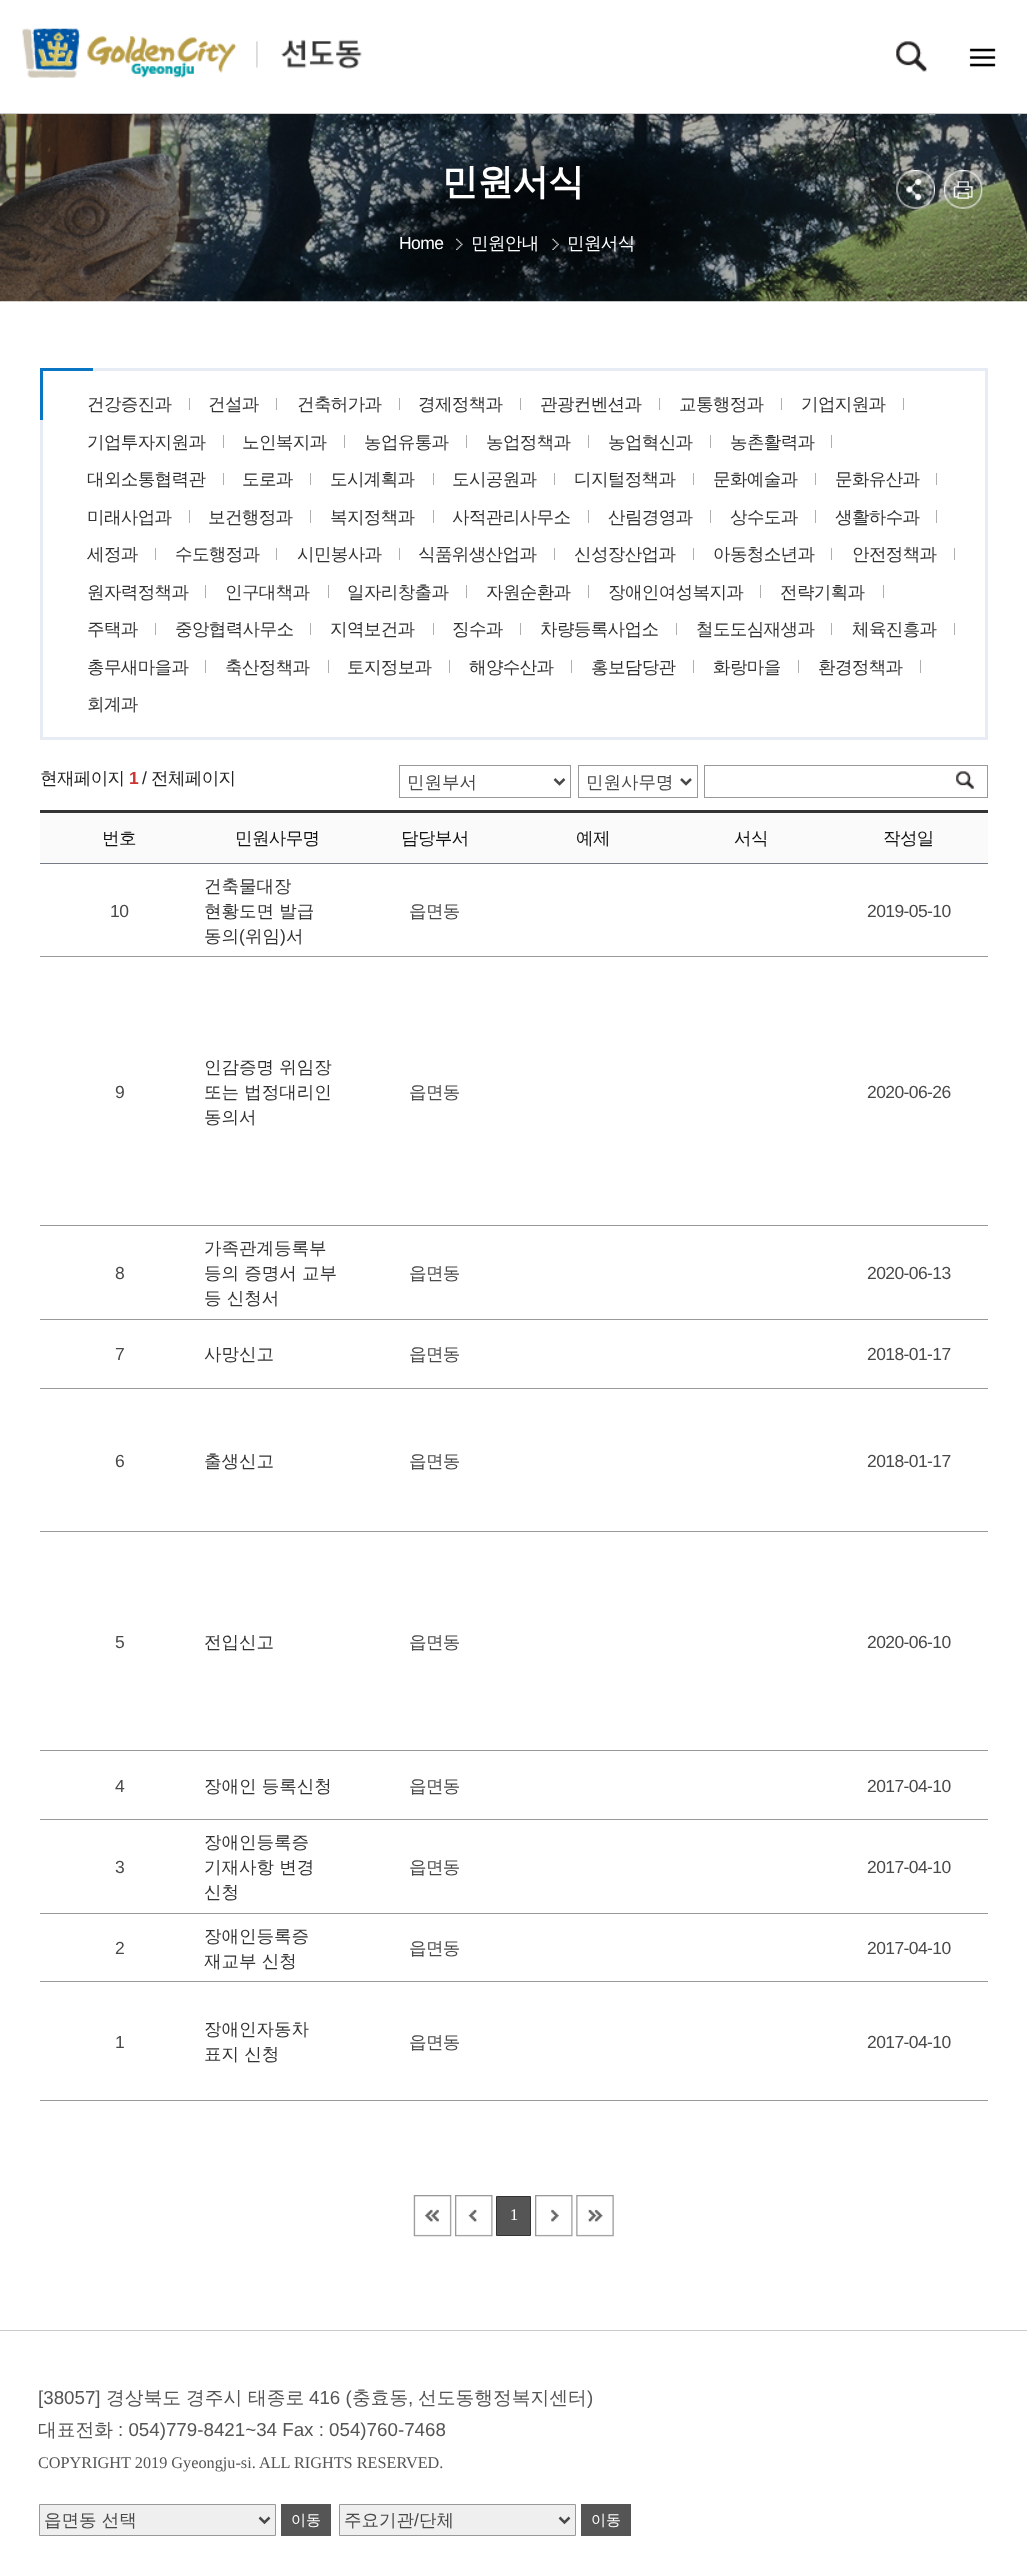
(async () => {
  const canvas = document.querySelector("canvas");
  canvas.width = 1027;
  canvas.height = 2568;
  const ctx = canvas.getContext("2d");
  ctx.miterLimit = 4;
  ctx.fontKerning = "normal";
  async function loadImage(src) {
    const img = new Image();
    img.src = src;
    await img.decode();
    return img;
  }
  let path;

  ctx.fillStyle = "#ffffff";
  ctx.fillRect(0, 0, 1027, 2568);
  ctx.drawImage(await loadImage("img/1.png"), 22, 28, 340, 50);
  ctx.drawImage(await loadImage("img/2.png"), 896, 41, 31, 31);
  ctx.drawImage(await loadImage("img/3.png"), 969, 48, 27, 19);
  ctx.drawImage(await loadImage("img/4.png"), 0, 114, 1027, 188);
  ctx.fillStyle = "#cccccc";
  ctx.fillRect(0, 113, 1027, 1);
  ctx.drawImage(await loadImage("img/5.png"), 896, 170, 39, 39);
  ctx.drawImage(await loadImage("img/6.png"), 943, 170, 40, 39);
  ctx.drawImage(await loadImage("img/7.png"), 456, 238, 7, 12);
  ctx.drawImage(await loadImage("img/8.png"), 552, 238, 7, 12);
  ctx.strokeStyle = "#e7ebf4";
  ctx.lineWidth = 3;
  ctx.strokeRect(41.5, 369.5, 945, 369);
  for (const [x, y, w, h, color] of [
    [40, 368, 53, 3, "#0a75c2"],
    [40, 368, 3, 52, "#0a75c2"],
    [189, 398, 1, 12, "#afafaf"],
    [276, 398, 1, 12, "#afafaf"],
    [399, 398, 1, 12, "#afafaf"],
    [520, 398, 1, 12, "#afafaf"],
    [659, 398, 1, 12, "#afafaf"],
    [781, 398, 1, 12, "#afafaf"],
    [903, 398, 1, 12, "#afafaf"],
    [223, 435, 1, 13, "#afafaf"],
    [344, 435, 1, 13, "#afafaf"],
    [466, 435, 1, 13, "#afafaf"],
    [588, 435, 1, 13, "#afafaf"],
    [710, 435, 1, 13, "#afafaf"],
    [831, 435, 1, 13, "#afafaf"],
    [223, 473, 1, 12, "#afafaf"],
    [310, 473, 1, 12, "#afafaf"],
    [433, 473, 1, 12, "#afafaf"],
    [554, 473, 1, 12, "#afafaf"],
    [693, 473, 1, 12, "#afafaf"],
    [815, 473, 1, 12, "#afafaf"],
    [936, 473, 1, 12, "#afafaf"],
    [189, 510, 1, 13, "#afafaf"],
    [310, 510, 1, 13, "#afafaf"],
    [433, 510, 1, 13, "#afafaf"],
    [588, 510, 1, 13, "#afafaf"],
    [710, 510, 1, 13, "#afafaf"],
    [815, 510, 1, 13, "#afafaf"],
    [936, 510, 1, 13, "#afafaf"],
    [155, 548, 1, 12, "#afafaf"],
    [276, 548, 1, 12, "#afafaf"],
    [399, 548, 1, 12, "#afafaf"],
    [554, 548, 1, 12, "#afafaf"],
    [693, 548, 1, 12, "#afafaf"],
    [831, 548, 1, 12, "#afafaf"],
    [954, 548, 1, 12, "#afafaf"],
    [205, 585, 1, 13, "#afafaf"],
    [328, 585, 1, 13, "#afafaf"],
    [466, 585, 1, 13, "#afafaf"],
    [588, 585, 1, 13, "#afafaf"],
    [760, 585, 1, 13, "#afafaf"],
    [883, 585, 1, 13, "#afafaf"],
    [155, 623, 1, 12, "#afafaf"],
    [310, 623, 1, 12, "#afafaf"],
    [433, 623, 1, 12, "#afafaf"],
    [520, 623, 1, 12, "#afafaf"],
    [676, 623, 1, 12, "#afafaf"],
    [831, 623, 1, 12, "#afafaf"],
    [954, 623, 1, 12, "#afafaf"],
    [205, 660, 1, 13, "#afafaf"],
    [328, 660, 1, 13, "#afafaf"],
    [449, 660, 1, 13, "#afafaf"],
    [571, 660, 1, 13, "#afafaf"],
    [693, 660, 1, 13, "#afafaf"],
    [798, 660, 1, 13, "#afafaf"],
    [920, 660, 1, 13, "#afafaf"],
  ]) {
    ctx.fillStyle = color;
    ctx.fillRect(x, y, w, h);
  }
  ctx.strokeStyle = "#999999";
  ctx.lineWidth = 1;
  ctx.strokeRect(704.5, 765.5, 283, 32);
  ctx.strokeRect(399.5, 765.5, 171, 32);
  path = new Path2D("M554.5 779L559.5 784L564.5 779");
  ctx.strokeStyle = "#494949";
  ctx.lineWidth = 2.5;
  ctx.stroke(path);
  ctx.strokeStyle = "#999999";
  ctx.lineWidth = 1;
  ctx.strokeRect(578.5, 765.5, 119, 32);
  path = new Path2D("M681 779L686 784L691 779");
  ctx.strokeStyle = "#494949";
  ctx.lineWidth = 2.5;
  ctx.stroke(path);
  ctx.drawImage(await loadImage("img/9.png"), 956, 771, 18, 18);
  for (const [x, y, w, h, color] of [
    [40, 810, 948, 3, "#333333"],
    [40, 813, 948, 50, "#fafafa"],
    [40, 863, 948, 1, "#757c86"],
    [40, 956, 948, 1, "#999999"],
    [40, 1225, 948, 1, "#999999"],
    [40, 1319, 948, 1, "#999999"],
    [40, 1388, 948, 1, "#999999"],
    [40, 1531, 948, 1, "#999999"],
    [40, 1750, 948, 1, "#999999"],
    [40, 1819, 948, 1, "#999999"],
    [40, 1913, 948, 1, "#999999"],
    [40, 1981, 948, 1, "#999999"],
    [40, 2100, 948, 1, "#999999"],
  ]) {
    ctx.fillStyle = color;
    ctx.fillRect(x, y, w, h);
  }
  ctx.drawImage(await loadImage("img/10.png"), 413, 2195, 39, 42);
  ctx.drawImage(await loadImage("img/11.png"), 455, 2195, 38, 42);
  ctx.fillStyle = "#555555";
  ctx.beginPath();
  ctx.rect(496.5, 2196.5, 34, 39);
  ctx.fill();
  ctx.strokeStyle = "#333333";
  ctx.lineWidth = 1;
  ctx.stroke();
  ctx.drawImage(await loadImage("img/12.png"), 535, 2195, 38, 42);
  ctx.drawImage(await loadImage("img/13.png"), 576, 2195, 38, 42);
  ctx.fillStyle = "#cccccc";
  ctx.fillRect(0, 2330, 1027, 1);
  ctx.fillStyle = "#efefef";
  ctx.beginPath();
  ctx.rect(39.5, 2504.5, 236, 31);
  ctx.fill();
  ctx.strokeStyle = "#999999";
  ctx.stroke();
  path = new Path2D("M259.5 2517.5L264.5 2522.5L269.5 2517.5");
  ctx.strokeStyle = "#494949";
  ctx.lineWidth = 2.5;
  ctx.stroke(path);
  ctx.fillStyle = "#555555";
  ctx.fillRect(281, 2504, 50, 32);
  ctx.fillStyle = "#efefef";
  ctx.beginPath();
  ctx.rect(339.5, 2504.5, 236, 31);
  ctx.fill();
  ctx.strokeStyle = "#999999";
  ctx.lineWidth = 1;
  ctx.stroke();
  path = new Path2D("M559.5 2517.5L564.5 2522.5L569.5 2517.5");
  ctx.strokeStyle = "#494949";
  ctx.lineWidth = 2.5;
  ctx.stroke(path);
  ctx.fillStyle = "#555555";
  ctx.fillRect(581, 2504, 50, 32);
  ctx.letterSpacing = "-0.6px";
  ctx.font = "bold 36px WenQuanYi Zen Hei";
  ctx.fillStyle = "#ffffff";
  ctx.fillText("민원서식", 442, 194);
  ctx.font = "17.5px Liberation Sans";
  ctx.fillText("Home", 399, 249);
  ctx.font = "500 17.5px WenQuanYi Zen Hei";
  ctx.fillText("민원안내", 471, 249);
  ctx.fillText("민원서식", 567, 249);
  ctx.fillStyle = "#333333";
  for (const [text, x, y] of [
    ["건강증진과", 87, 410],
    ["건설과", 208, 410],
    ["건축허가과", 297, 410],
    ["경제정책과", 418, 410],
    ["관광컨벤션과", 540, 410],
    ["교통행정과", 679, 410],
    ["기업지원과", 801, 410],
    ["기업투자지원과", 87, 448],
    ["노인복지과", 242, 448],
    ["농업유통과", 364, 448],
    ["농업정책과", 486, 448],
    ["농업혁신과", 608, 448],
    ["농촌활력과", 730, 448],
    ["대외소통협력관", 87, 485],
    ["도로과", 242, 485],
    ["도시계획과", 330, 485],
    ["도시공원과", 452, 485],
    ["디지털정책과", 574, 485],
    ["문화예술과", 713, 485],
    ["문화유산과", 835, 485],
    ["미래사업과", 87, 523],
    ["보건행정과", 208, 523],
    ["복지정책과", 330, 523],
    ["사적관리사무소", 452, 523],
    ["산림경영과", 608, 523],
    ["상수도과", 730, 523],
    ["생활하수과", 835, 523],
    ["세정과", 87, 560],
    ["수도행정과", 175, 560],
    ["시민봉사과", 297, 560],
    ["식품위생산업과", 418, 560],
    ["신성장산업과", 574, 560],
    ["아동청소년과", 713, 560],
    ["안전정책과", 852, 560],
    ["원자력정책과", 87, 598],
    ["인구대책과", 225, 598],
    ["일자리창출과", 347, 598],
    ["자원순환과", 486, 598],
    ["장애인여성복지과", 608, 598],
    ["전략기획과", 780, 598],
    ["주택과", 87, 635],
    ["중앙협력사무소", 175, 635],
    ["지역보건과", 330, 635],
    ["징수과", 452, 635],
    ["차량등록사업소", 540, 635],
    ["철도도심재생과", 696, 635],
    ["체육진흥과", 852, 635],
    ["총무새마을과", 87, 673],
    ["축산정책과", 225, 673],
    ["토지정보과", 347, 673],
    ["해양수산과", 469, 673],
    ["홍보담당관", 591, 673],
    ["화랑마을", 713, 673],
    ["환경정책과", 818, 673],
    ["회계과", 87, 710],
  ]) {
    ctx.fillText(text, x, y);
  }
  ctx.fillStyle = "#222222";
  ctx.fillText("현재페이지", 40, 784);
  ctx.font = "bold 17.5px Liberation Sans";
  ctx.fillStyle = "#cc3333";
  ctx.fillText("1", 129, 784);
  ctx.font = "17.5px Liberation Sans";
  ctx.fillStyle = "#222222";
  ctx.fillText("/", 142, 784);
  ctx.font = "500 17.5px WenQuanYi Zen Hei";
  ctx.fillText("전체페이지", 151, 784);
  ctx.letterSpacing = "0px";
  ctx.fillStyle = "#494949";
  ctx.fillText("민원부서", 407, 788);
  ctx.fillText("민원사무명", 586, 788);
  ctx.letterSpacing = "-0.6px";
  ctx.fillStyle = "#111111";
  for (const [text, x, y] of [
    ["번호", 102, 844],
    ["민원사무명", 235, 844],
    ["담당부서", 401, 844],
    ["예제", 576, 844],
    ["서식", 734, 844],
    ["작성일", 883, 844],
  ]) {
    ctx.fillText(text, x, y);
  }
  ctx.font = "17.5px Liberation Sans";
  ctx.fillStyle = "#494949";
  ctx.fillText("10", 110, 917);
  ctx.letterSpacing = "0px";
  ctx.font = "500 17.5px WenQuanYi Zen Hei";
  ctx.fillStyle = "#333333";
  for (const [text, x, y] of [
    ["건축물대장", 204, 892],
    ["현황도면 발급", 204, 917],
    ["동의", 204, 942],
  ]) {
    ctx.fillText(text, x, y);
  }
  ctx.font = "17.5px Liberation Sans";
  ctx.fillText("(", 239, 942);
  ctx.font = "500 17.5px WenQuanYi Zen Hei";
  ctx.fillText("위임", 245, 942);
  ctx.font = "17.5px Liberation Sans";
  ctx.fillText(")", 280, 942);
  ctx.font = "500 17.5px WenQuanYi Zen Hei";
  ctx.fillText("서", 286, 942);
  ctx.letterSpacing = "-0.6px";
  ctx.fillStyle = "#494949";
  ctx.fillText("읍면동", 409, 917);
  ctx.font = "17.5px Liberation Sans";
  ctx.fillText("2019-05-10", 867, 917);
  ctx.fillText("9", 115, 1098);
  ctx.letterSpacing = "0px";
  ctx.font = "500 17.5px WenQuanYi Zen Hei";
  ctx.fillStyle = "#333333";
  for (const [text, x, y] of [
    ["인감증명 위임장", 204, 1073],
    ["또는 법정대리인", 204, 1098],
    ["동의서", 204, 1123],
  ]) {
    ctx.fillText(text, x, y);
  }
  ctx.letterSpacing = "-0.6px";
  ctx.fillStyle = "#494949";
  ctx.fillText("읍면동", 409, 1098);
  ctx.font = "17.5px Liberation Sans";
  ctx.fillText("2020-06-26", 867, 1098);
  ctx.fillText("8", 115, 1279);
  ctx.letterSpacing = "0px";
  ctx.font = "500 17.5px WenQuanYi Zen Hei";
  ctx.fillStyle = "#333333";
  for (const [text, x, y] of [
    ["가족관계등록부", 204, 1254],
    ["등의 증명서 교부", 204, 1279],
    ["등 신청서", 204, 1304],
  ]) {
    ctx.fillText(text, x, y);
  }
  ctx.letterSpacing = "-0.6px";
  ctx.fillStyle = "#494949";
  ctx.fillText("읍면동", 409, 1279);
  ctx.font = "17.5px Liberation Sans";
  ctx.fillText("2020-06-13", 867, 1279);
  ctx.fillText("7", 115, 1360);
  ctx.letterSpacing = "0px";
  ctx.font = "500 17.5px WenQuanYi Zen Hei";
  ctx.fillStyle = "#333333";
  ctx.fillText("사망신고", 204, 1360);
  ctx.letterSpacing = "-0.6px";
  ctx.fillStyle = "#494949";
  ctx.fillText("읍면동", 409, 1360);
  ctx.font = "17.5px Liberation Sans";
  ctx.fillText("2018-01-17", 867, 1360);
  ctx.fillText("6", 115, 1467);
  ctx.letterSpacing = "0px";
  ctx.font = "500 17.5px WenQuanYi Zen Hei";
  ctx.fillStyle = "#333333";
  ctx.fillText("출생신고", 204, 1467);
  ctx.letterSpacing = "-0.6px";
  ctx.fillStyle = "#494949";
  ctx.fillText("읍면동", 409, 1467);
  ctx.font = "17.5px Liberation Sans";
  ctx.fillText("2018-01-17", 867, 1467);
  ctx.fillText("5", 115, 1648);
  ctx.letterSpacing = "0px";
  ctx.font = "500 17.5px WenQuanYi Zen Hei";
  ctx.fillStyle = "#333333";
  ctx.fillText("전입신고", 204, 1648);
  ctx.letterSpacing = "-0.6px";
  ctx.fillStyle = "#494949";
  ctx.fillText("읍면동", 409, 1648);
  ctx.font = "17.5px Liberation Sans";
  ctx.fillText("2020-06-10", 867, 1648);
  ctx.fillText("4", 115, 1792);
  ctx.letterSpacing = "0px";
  ctx.font = "500 17.5px WenQuanYi Zen Hei";
  ctx.fillStyle = "#333333";
  ctx.fillText("장애인 등록신청", 204, 1792);
  ctx.letterSpacing = "-0.6px";
  ctx.fillStyle = "#494949";
  ctx.fillText("읍면동", 409, 1792);
  ctx.font = "17.5px Liberation Sans";
  ctx.fillText("2017-04-10", 867, 1792);
  ctx.fillText("3", 115, 1873);
  ctx.letterSpacing = "0px";
  ctx.font = "500 17.5px WenQuanYi Zen Hei";
  ctx.fillStyle = "#333333";
  for (const [text, x, y] of [
    ["장애인등록증", 204, 1848],
    ["기재사항 변경", 204, 1873],
    ["신청", 204, 1898],
  ]) {
    ctx.fillText(text, x, y);
  }
  ctx.letterSpacing = "-0.6px";
  ctx.fillStyle = "#494949";
  ctx.fillText("읍면동", 409, 1873);
  ctx.font = "17.5px Liberation Sans";
  ctx.fillText("2017-04-10", 867, 1873);
  ctx.fillText("2", 115, 1954);
  ctx.letterSpacing = "0px";
  ctx.font = "500 17.5px WenQuanYi Zen Hei";
  ctx.fillStyle = "#333333";
  ctx.fillText("장애인등록증", 204, 1942);
  ctx.fillText("재교부 신청", 204, 1967);
  ctx.letterSpacing = "-0.6px";
  ctx.fillStyle = "#494949";
  ctx.fillText("읍면동", 409, 1954);
  ctx.font = "17.5px Liberation Sans";
  ctx.fillText("2017-04-10", 867, 1954);
  ctx.fillText("1", 115, 2048);
  ctx.letterSpacing = "0px";
  ctx.font = "500 17.5px WenQuanYi Zen Hei";
  ctx.fillStyle = "#333333";
  ctx.fillText("장애인자동차", 204, 2035);
  ctx.fillText("표지 신청", 204, 2060);
  ctx.letterSpacing = "-0.6px";
  ctx.fillStyle = "#494949";
  ctx.fillText("읍면동", 409, 2048);
  ctx.font = "17.5px Liberation Sans";
  ctx.fillText("2017-04-10", 867, 2048);
  ctx.font = "16.25px Liberation Serif";
  ctx.fillStyle = "#ffffff";
  ctx.fillText("1", 510, 2220);
  ctx.letterSpacing = "0px";
  ctx.font = "18.75px Liberation Sans";
  ctx.fillStyle = "#555555";
  ctx.fillText("[38057]", 38, 2404);
  ctx.font = "500 18.75px WenQuanYi Zen Hei";
  for (const [text, x, y] of [
    ["경상북도", 106, 2404],
    ["경주시", 186, 2404],
    ["태종로", 248, 2404],
  ]) {
    ctx.fillText(text, x, y);
  }
  ctx.font = "18.75px Liberation Sans";
  ctx.fillText("416 (", 309, 2404);
  ctx.font = "500 18.75px WenQuanYi Zen Hei";
  ctx.fillText("충효동", 352, 2404);
  ctx.font = "18.75px Liberation Sans";
  ctx.fillText(",", 408, 2404);
  ctx.font = "500 18.75px WenQuanYi Zen Hei";
  ctx.fillText("선도동행정복지센터", 418, 2404);
  ctx.font = "18.75px Liberation Sans";
  ctx.fillText(")", 587, 2404);
  ctx.font = "500 18.75px WenQuanYi Zen Hei";
  ctx.fillText("대표전화", 38, 2436);
  ctx.font = "18.75px Liberation Sans";
  ctx.fillText(": 054)779-8421~34 Fax : 054)760-7468", 118, 2436);
  ctx.font = "16.25px Liberation Serif";
  ctx.fillText("COPYRIGHT 2019 Gyeongju-si. ALL RIGHTS RESERVED.", 38, 2468);
  ctx.font = "500 17.5px WenQuanYi Zen Hei";
  ctx.fillStyle = "#494949";
  ctx.fillText("읍면동 선택", 44, 2526);
  ctx.font = "500 15px WenQuanYi Zen Hei";
  ctx.fillStyle = "#ffffff";
  ctx.fillText("이동", 291, 2525);
  ctx.font = "500 17.5px WenQuanYi Zen Hei";
  ctx.fillStyle = "#494949";
  ctx.fillText("주요기관", 344, 2526);
  ctx.font = "17.5px Liberation Sans";
  ctx.fillText("/", 414, 2526);
  ctx.font = "500 17.5px WenQuanYi Zen Hei";
  ctx.fillText("단체", 419, 2526);
  ctx.font = "500 15px WenQuanYi Zen Hei";
  ctx.fillStyle = "#ffffff";
  ctx.fillText("이동", 591, 2525);
})();
